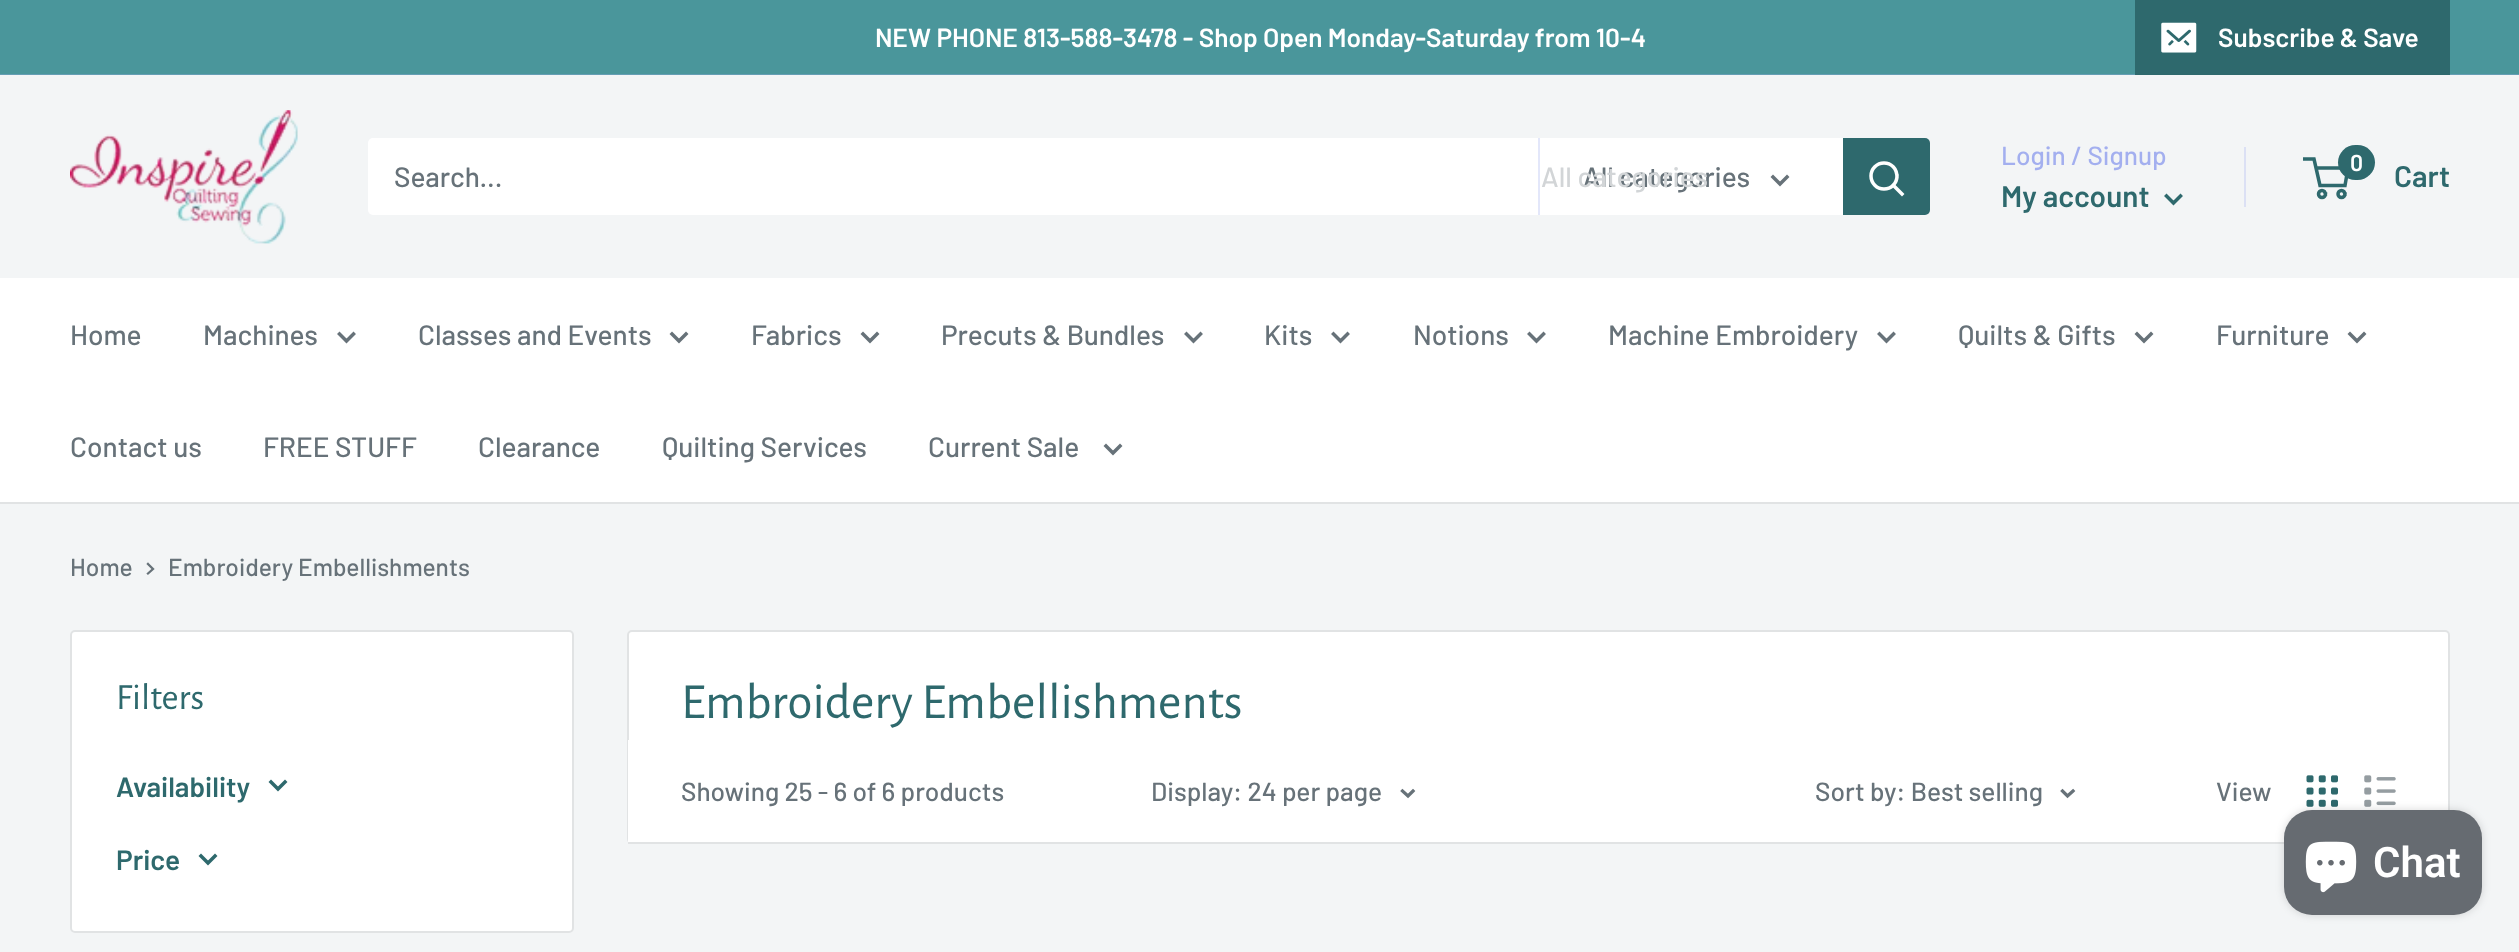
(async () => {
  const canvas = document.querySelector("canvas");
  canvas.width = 2519;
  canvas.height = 952;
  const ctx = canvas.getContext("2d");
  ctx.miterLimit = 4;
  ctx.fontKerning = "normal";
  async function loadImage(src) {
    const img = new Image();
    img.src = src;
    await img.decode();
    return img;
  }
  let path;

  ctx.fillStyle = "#f3f5f6";
  ctx.fillRect(0, 0, 2519, 952);
  for (const [x, y, w, h, color] of [
    [0, 0, 2519, 74, "#4a969b"],
    [0, 74, 2519, 1, "#659eb4"],
    [2135, 0, 315, 75, "#2e696d"],
  ]) {
    ctx.fillStyle = color;
    ctx.fillRect(x, y, w, h);
  }
  ctx.drawImage(await loadImage("img/1.png"), 2161, 22, 36, 31);
  ctx.drawImage(await loadImage("img/2.png"), 70, 110, 228, 134);
  ctx.fillStyle = "#ffffff";
  ctx.beginPath();
  ctx.roundRect(368, 138, 1562, 77, 5);
  ctx.fill();
  ctx.fillStyle = "#e3e7fa";
  ctx.fillRect(1538, 138, 2, 77);
  path = new Path2D("M1787 177L1780 184L1773 177");
  ctx.strokeStyle = "#677279";
  ctx.lineWidth = 3.5;
  ctx.lineCap = "square";
  ctx.stroke(path);
  ctx.fillStyle = "#2e696d";
  ctx.beginPath();
  ctx.roundRect(1843, 138, 87, 77, [0, 5, 5, 0]);
  ctx.fill();
  path = new Path2D("M1902 194L1893.5 185.5");
  ctx.strokeStyle = "#ffffff";
  ctx.stroke(path);
  ctx.beginPath();
  ctx.arc(1884, 176, 13, 0, Math.PI * 2);
  ctx.stroke();
  ctx.fillStyle = "#dbe0f4";
  ctx.fillRect(2244, 147, 2, 60);
  path = new Path2D("M2180.5 196L2173.5 203L2166.5 196");
  ctx.strokeStyle = "#2e696d";
  ctx.stroke(path);
  ctx.beginPath();
  ctx.arc(2322, 194, 3.5, 0, Math.PI * 2);
  ctx.stroke();
  ctx.beginPath();
  ctx.arc(2341.5, 194, 3.5, 0, Math.PI * 2);
  ctx.stroke();
  path = new Path2D("M2316 168H2348L2345 185.5H2320L2314 159H2303");
  ctx.lineCap = "butt";
  ctx.stroke(path);
  ctx.fillStyle = "#2e696d";
  ctx.beginPath();
  ctx.roundRect(2338, 145, 37, 35, 17.5);
  ctx.fill();
  ctx.fillStyle = "#ffffff";
  ctx.fillRect(0, 278, 2519, 224);
  ctx.fillStyle = "#e1e3e4";
  ctx.fillRect(0, 502, 2519, 2);
  path = new Path2D("M353.5 334L346.5 341L339.5 334");
  ctx.strokeStyle = "#677279";
  ctx.lineCap = "square";
  ctx.stroke(path);
  path = new Path2D("M686 334L679 341L672 334");
  ctx.stroke(path);
  path = new Path2D("M877 334L870 341L863 334");
  ctx.stroke(path);
  path = new Path2D("M1200.5 334L1193.5 341L1186.5 334");
  ctx.stroke(path);
  path = new Path2D("M1347.5 334L1340.5 341L1333.5 334");
  ctx.stroke(path);
  path = new Path2D("M1543.5 334L1536.5 341L1529.5 334");
  ctx.stroke(path);
  path = new Path2D("M1893.5 334L1886.5 341L1879.5 334");
  ctx.stroke(path);
  path = new Path2D("M2151 334L2144 341L2137 334");
  ctx.stroke(path);
  path = new Path2D("M2364 334L2357 341L2350 334");
  ctx.stroke(path);
  path = new Path2D("M1120 446L1113 453L1106 446");
  ctx.stroke(path);
  path = new Path2D("M148 564L153 569L148 573.5");
  ctx.lineWidth = 2.3;
  ctx.stroke(path);
  ctx.fillStyle = "#ffffff";
  ctx.beginPath();
  ctx.roundRect(71, 631, 502, 301, 4);
  ctx.fill();
  ctx.strokeStyle = "#e1e3e4";
  ctx.lineWidth = 2;
  ctx.stroke();
  path = new Path2D("M285 782L278 789L271 782");
  ctx.strokeStyle = "#2e696d";
  ctx.lineWidth = 3.5;
  ctx.stroke(path);
  path = new Path2D("M215 856L208 863L201 856");
  ctx.stroke(path);
  ctx.beginPath();
  ctx.roundRect(628, 631, 1821, 212, 4);
  ctx.fill();
  ctx.strokeStyle = "#e1e3e4";
  ctx.lineWidth = 2;
  ctx.stroke();
  ctx.fillStyle = "#e1e3e4";
  path = new Path2D("M628 742V844H2448V842H628Z");
  ctx.fill(path);
  ctx.fillStyle = "#ffffff";
  ctx.fillRect(628, 740, 1820, 102);
  path = new Path2D("M1413 791L1408 796L1402.5 791");
  ctx.strokeStyle = "#677279";
  ctx.lineWidth = 3.3;
  ctx.stroke(path);
  path = new Path2D("M2073 791L2067.5 796L2062.5 791");
  ctx.stroke(path);
  ctx.drawImage(await loadImage("img/3.png"), 2306, 775, 32, 32);
  ctx.drawImage(await loadImage("img/4.png"), 2364, 775, 32, 32);
  ctx.fillStyle = "rgba(0, 0, 0, 0.15)";
  ctx.filter = "blur(4.5px)";
  ctx.beginPath();
  ctx.roundRect(2284, 810, 198, 105, 28);
  ctx.fill();
  ctx.filter = "none";
  ctx.fillStyle = "#666b71";
  ctx.beginPath();
  ctx.roundRect(2284, 810, 198, 105, 28);
  ctx.fill();
  ctx.drawImage(await loadImage("img/5.png"), 2305, 841, 52, 52);
  ctx.font = "600 26.25px Barlow";
  ctx.fillStyle = "#ffffff";
  ctx.fillText("NEW PHONE 813-588-3478 - Shop Open Monday-Saturday from 10-4", 875, 47);
  ctx.fillText("Subscribe & Save", 2218, 47);
  ctx.font = "500 28px Barlow";
  ctx.fillStyle = "#677279";
  ctx.fillText("Search...", 394, 187);
  ctx.fillText("All categories", 1583, 187);
  ctx.fillStyle = "#d2d5d7";
  ctx.fillText("All categories", 1541, 187);
  ctx.font = "500 26.25px Barlow";
  ctx.fillStyle = "#a3afef";
  ctx.fillText("Login / Signup", 2001, 165);
  ctx.font = "600 29.75px Barlow";
  ctx.fillStyle = "#2e696d";
  ctx.fillText("My account", 2001, 207);
  ctx.font = "600 23px Barlow";
  ctx.fillStyle = "#ffffff";
  ctx.fillText("0", 2350, 171);
  ctx.font = "600 29.75px Barlow";
  ctx.fillStyle = "#2e696d";
  ctx.fillText("Cart", 2394, 187);
  ctx.font = "500 28px Barlow";
  ctx.fillStyle = "#677279";
  for (const [text, x, y] of [
    ["Home", 70, 345],
    ["Machines", 203, 345],
    ["Classes and Events", 418, 345],
    ["Fabrics", 751, 345],
    ["Precuts & Bundles", 941, 345],
    ["Kits", 1264, 345],
    ["Notions", 1413, 345],
    ["Machine Embroidery", 1608, 345],
    ["Quilts & Gifts", 1958, 345],
    ["Furniture", 2216, 345],
    ["Contact us", 70, 457],
    ["FREE STUFF", 263, 457],
    ["Clearance", 478, 457],
    ["Quilting Services", 662, 457],
    ["Current Sale", 928, 457],
  ]) {
    ctx.fillText(text, x, y);
  }
  ctx.font = "500 24.5px Barlow";
  ctx.fillText("Home", 70, 576);
  ctx.fillText("Embroidery Embellishments", 168, 576);
  ctx.font = "37px Alegreya Sans";
  ctx.fillStyle = "#2e696d";
  ctx.fillText("Filters", 116, 709);
  ctx.font = "600 28px Barlow";
  ctx.fillText("Availability", 116, 797);
  ctx.fillText("Price", 116, 870);
  ctx.font = "50.75px Alegreya Sans";
  ctx.fillText("Embroidery Embellishments", 681, 718);
  ctx.font = "500 26.25px Barlow";
  ctx.fillStyle = "#677279";
  for (const [text, x, y] of [
    ["Showing 25 - 6 of 6 products", 681, 801],
    ["Display: 24 per page", 1151, 801],
    ["Sort by: Best selling", 1815, 801],
    ["View", 2216, 801],
  ]) {
    ctx.fillText(text, x, y);
  }
  ctx.font = "600 42px Roboto";
  ctx.fillStyle = "#ffffff";
  ctx.fillText("Chat", 2373, 877);
})();
